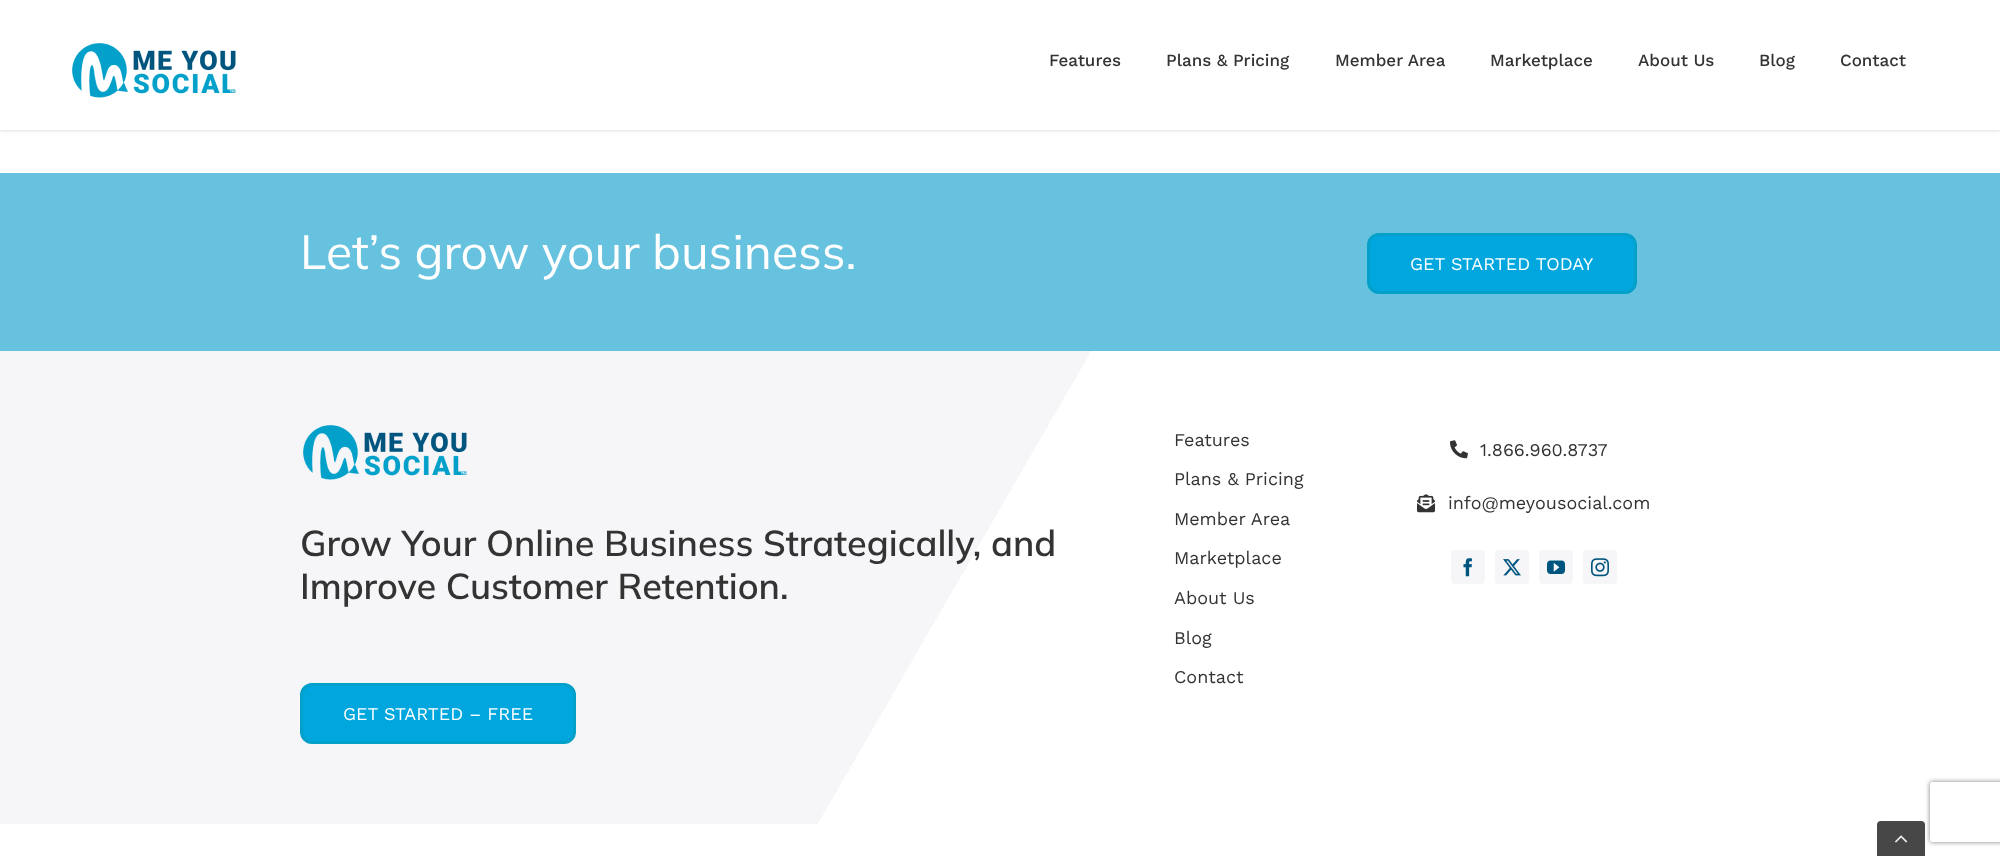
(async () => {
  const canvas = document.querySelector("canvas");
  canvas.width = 2000;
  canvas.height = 856;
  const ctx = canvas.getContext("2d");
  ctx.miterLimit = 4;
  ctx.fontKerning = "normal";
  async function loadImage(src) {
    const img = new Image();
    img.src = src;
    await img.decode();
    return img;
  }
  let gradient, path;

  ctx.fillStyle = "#ffffff";
  ctx.fillRect(0, 0, 2000, 856);
  ctx.fillStyle = "rgba(0, 0, 0, 0.12)";
  ctx.filter = "blur(1.5px)";
  ctx.beginPath();
  ctx.rect(0, 1, 2000, 130);
  ctx.fill();
  ctx.filter = "none";
  ctx.fillStyle = "#ffffff";
  ctx.fillRect(0, 0, 2000, 130);
  ctx.drawImage(await loadImage("img/1.png"), 72, 43, 164, 55);
  ctx.fillStyle = "#67c2df";
  ctx.fillRect(0, 173, 2000, 178);
  ctx.fillStyle = "#00a6de";
  ctx.beginPath();
  ctx.roundRect(1368.5, 234.5, 267, 58, 10.5);
  ctx.fill();
  ctx.strokeStyle = "#03a0ca";
  ctx.lineWidth = 3;
  ctx.stroke();
  gradient = ctx.createLinearGradient(148, 95, 1852, 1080);
  gradient.addColorStop(0.48, "#f6f6f9");
  gradient.addColorStop(0.48, "#ffffff");
  ctx.fillStyle = gradient;
  ctx.fillRect(0, 351, 1091, 473);
  ctx.drawImage(await loadImage("img/2.png"), 1450, 440, 18, 19);
  ctx.drawImage(await loadImage("img/3.png"), 1417, 494, 18, 19);
  ctx.fillStyle = "#f6f6f9";
  ctx.beginPath();
  ctx.roundRect(1451, 550, 34, 34, 4);
  ctx.fill();
  ctx.drawImage(await loadImage("img/4.png"), 1463, 558, 9, 19);
  ctx.beginPath();
  ctx.roundRect(1495, 550, 34, 34, 4);
  ctx.fill();
  ctx.drawImage(await loadImage("img/5.png"), 1503, 559, 18, 17);
  ctx.beginPath();
  ctx.roundRect(1539, 550, 34, 34, 4);
  ctx.fill();
  ctx.drawImage(await loadImage("img/6.png"), 1547, 560, 18, 14);
  ctx.beginPath();
  ctx.roundRect(1583, 550, 34, 34, 4);
  ctx.fill();
  ctx.drawImage(await loadImage("img/7.png"), 1591, 558, 18, 19);
  ctx.drawImage(await loadImage("img/8.png"), 303, 425, 164, 55);
  ctx.fillStyle = "#00a6de";
  ctx.beginPath();
  ctx.roundRect(301.5, 684.5, 273, 58, 10.5);
  ctx.fill();
  ctx.stroke();
  ctx.save();
  path = new Path2D("M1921 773H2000V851H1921ZM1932 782H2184C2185 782 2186 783 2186 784V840C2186 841 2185 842 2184 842H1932C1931 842 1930 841 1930 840V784C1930 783 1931 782 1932 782Z");
  ctx.clip(path, "evenodd");
  ctx.fillStyle = "#808080";
  ctx.filter = "blur(2.5px)";
  ctx.beginPath();
  ctx.roundRect(1930, 782, 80, 60, 2);
  ctx.fill();
  ctx.filter = "none";
  ctx.restore();
  ctx.fillStyle = "#474747";
  ctx.beginPath();
  ctx.roundRect(1877, 821, 48, 35, [4, 4, 0, 0]);
  ctx.fill();
  ctx.drawImage(await loadImage("img/9.png"), 1895, 835, 13, 8);
  ctx.font = "500 17px Work Sans";
  ctx.fillStyle = "#333333";
  for (const [text, x, y] of [
    ["Features", 1049, 66],
    ["Plans & Pricing", 1166, 66],
    ["Member Area", 1335, 66],
    ["Marketplace", 1490, 66],
    ["About Us", 1638, 66],
    ["Blog", 1759, 66],
    ["Contact", 1840, 66],
  ]) {
    ctx.fillText(text, x, y);
  }
  ctx.font = "48px Mulish";
  ctx.fillStyle = "#ffffff";
  ctx.fillText("Let’s grow your business.", 300, 269);
  ctx.font = "18px Work Sans";
  ctx.fillText("GET STARTED TODAY", 1410, 270);
  ctx.fillStyle = "#333333";
  for (const [text, x, y] of [
    ["Features", 1174, 446],
    ["Plans & Pricing", 1174, 485],
    ["Member Area", 1174, 525],
    ["Marketplace", 1174, 564],
    ["About Us", 1174, 604],
    ["Blog", 1174, 644],
    ["Contact", 1174, 683],
    ["1.866.960.8737", 1480, 456],
    ["info@meyousocial.com", 1448, 509],
  ]) {
    ctx.fillText(text, x, y);
  }
  ctx.font = "600 36px Mulish";
  ctx.fillText("Grow Your Online Business Strategically, and", 300, 556);
  ctx.fillText("Improve Customer Retention.", 300, 599);
  ctx.font = "18px Work Sans";
  ctx.fillStyle = "#ffffff";
  ctx.fillText("GET STARTED – FREE", 343, 720);
})();
